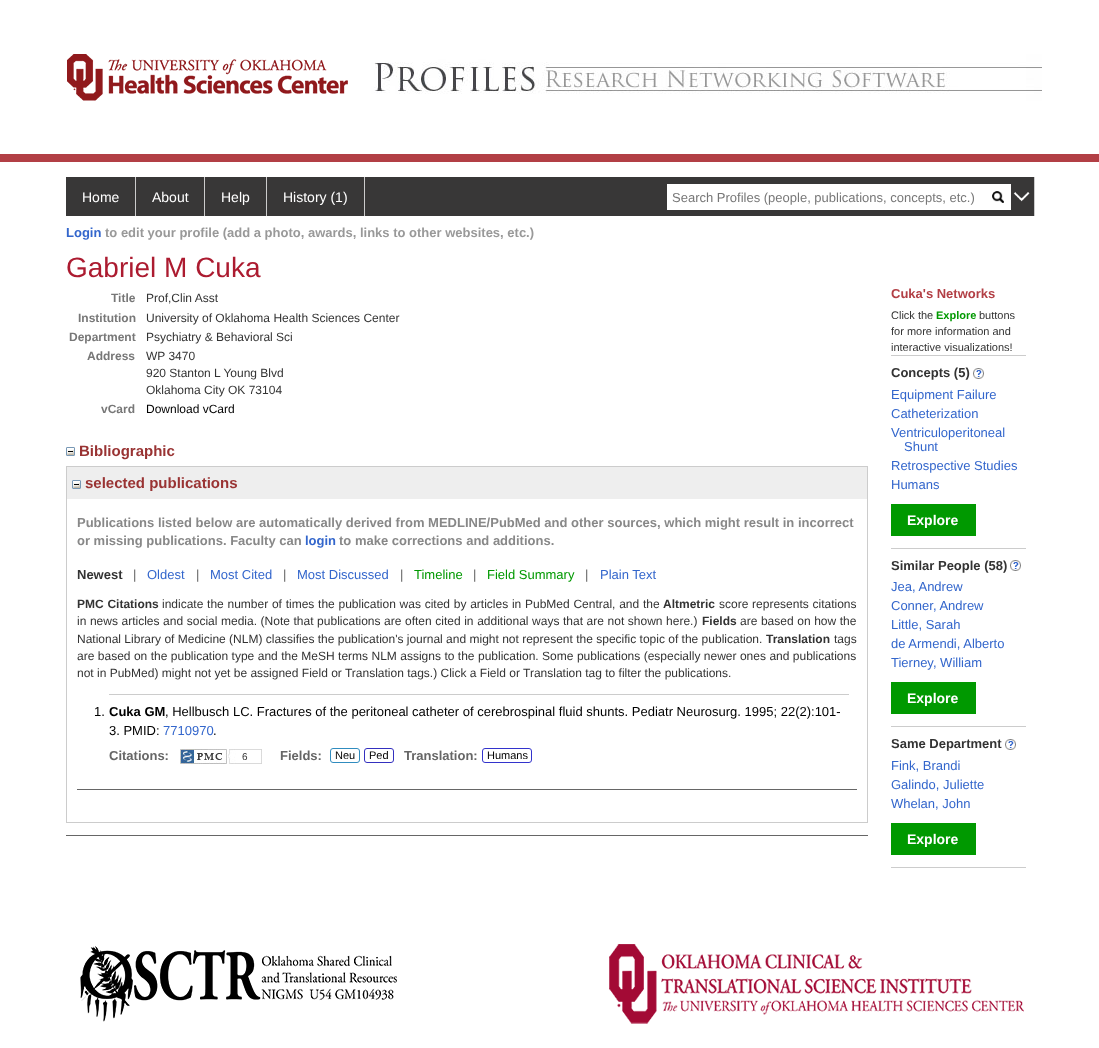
(async () => {
  const canvas = document.querySelector("canvas");
  canvas.width = 1099;
  canvas.height = 1048;
  const ctx = canvas.getContext("2d");
  ctx.miterLimit = 4;
  ctx.fontKerning = "normal";
  async function loadImage(src) {
    const img = new Image();
    img.src = src;
    await img.decode();
    return img;
  }

  ctx.fillStyle = "#ffffff";
  ctx.fillRect(0, 0, 1099, 1048);
  ctx.fillStyle = "#b23f45";
  ctx.fillRect(0, 154, 1099, 8);
  ctx.drawImage(await loadImage("img/1.png"), 67, 54, 975, 47);
  for (const [x, y, w, h, color] of [
    [66, 177, 968, 39, "#383737"],
    [135, 177, 1, 39, "#cccccc"],
    [204, 177, 1, 39, "#cccccc"],
    [266, 177, 1, 39, "#cccccc"],
    [364, 177, 1, 39, "#cccccc"],
    [667, 184, 344, 26, "#ffffff"],
  ]) {
    ctx.fillStyle = color;
    ctx.fillRect(x, y, w, h);
  }
  ctx.drawImage(await loadImage("img/2.png"), 992, 191, 12, 12);
  ctx.fillStyle = "#cccccc";
  ctx.fillRect(1034, 177, 1, 39);
  ctx.drawImage(await loadImage("img/3.png"), 1013, 192, 17, 10);
  ctx.drawImage(await loadImage("img/4.png"), 66, 447, 9, 9);
  ctx.strokeStyle = "#cccccc";
  ctx.strokeRect(66.5, 466.5, 801, 356);
  ctx.fillStyle = "#eeeeee";
  ctx.fillRect(67, 467, 800, 32);
  ctx.drawImage(await loadImage("img/4.png"), 72, 480, 9, 9);
  ctx.fillStyle = "#cccccc";
  ctx.fillRect(109, 694, 740, 1);
  ctx.drawImage(await loadImage("img/5.png"), 180, 749, 82, 15);
  ctx.beginPath();
  ctx.roundRect(330.5, 748.5, 29, 14, 2.5);
  ctx.strokeStyle = "#308cbf";
  ctx.stroke();
  ctx.beginPath();
  ctx.roundRect(364.5, 748.5, 29, 14, 2.5);
  ctx.strokeStyle = "#3430bf";
  ctx.stroke();
  ctx.beginPath();
  ctx.roundRect(482.5, 748.5, 49, 14, 2.5);
  ctx.strokeStyle = "#3333cc";
  ctx.stroke();
  for (const [x, y, w, h, color] of [
    [77, 789, 780, 1, "#666666"],
    [66, 835, 802, 1, "#666666"],
    [891, 355, 135, 1, "#cccccc"],
  ]) {
    ctx.fillStyle = color;
    ctx.fillRect(x, y, w, h);
  }
  ctx.drawImage(await loadImage("img/6.png"), 973, 368, 11, 11);
  ctx.fillStyle = "#009900";
  ctx.fillRect(891, 504, 85, 32);
  ctx.fillStyle = "#cccccc";
  ctx.fillRect(891, 548, 135, 1);
  ctx.drawImage(await loadImage("img/6.png"), 1010, 560, 11, 11);
  ctx.fillStyle = "#009900";
  ctx.fillRect(891, 682, 85, 32);
  ctx.fillStyle = "#cccccc";
  ctx.fillRect(891, 726, 135, 1);
  ctx.drawImage(await loadImage("img/6.png"), 1005, 739, 11, 11);
  ctx.fillStyle = "#009900";
  ctx.fillRect(891, 823, 85, 32);
  ctx.fillStyle = "#cccccc";
  ctx.fillRect(891, 867, 135, 1);
  ctx.drawImage(await loadImage("img/7.png"), 80, 944, 944, 80);
  ctx.font = "14px Liberation Sans";
  ctx.fillStyle = "#ffffff";
  for (const [text, x, y] of [
    ["Home", 82, 202],
    ["About", 152, 202],
    ["Help", 221, 202],
    ["History (1)", 283, 202],
  ]) {
    ctx.fillText(text, x, y);
  }
  ctx.font = "13px Liberation Sans";
  ctx.fillStyle = "#777777";
  ctx.fillText("Search Profiles (people, publications, concepts, etc.)", 672, 202);
  ctx.font = "bold 13px Liberation Sans";
  ctx.fillStyle = "#3366cc";
  ctx.fillText("Login", 66, 237);
  ctx.fillStyle = "#999999";
  ctx.fillText("to edit your profile (add a photo, awards, links to other websites, etc.)", 105, 237);
  ctx.font = "28px Liberation Sans";
  ctx.fillStyle = "#ac1b30";
  ctx.fillText("Gabriel M Cuka", 66, 277);
  ctx.font = "bold 12px Liberation Sans";
  ctx.fillStyle = "#777777";
  ctx.fillText("Title", 111, 302);
  ctx.font = "12px Liberation Sans";
  ctx.fillStyle = "#333333";
  ctx.fillText("Prof,Clin Asst", 146, 302);
  ctx.font = "bold 12px Liberation Sans";
  ctx.fillStyle = "#777777";
  ctx.fillText("Institution", 78, 322);
  ctx.font = "12px Liberation Sans";
  ctx.fillStyle = "#333333";
  ctx.fillText("University of Oklahoma Health Sciences Center", 146, 322);
  ctx.font = "bold 12px Liberation Sans";
  ctx.fillStyle = "#777777";
  ctx.fillText("Department", 69, 341);
  ctx.font = "12px Liberation Sans";
  ctx.fillStyle = "#333333";
  ctx.fillText("Psychiatry & Behavioral Sci", 146, 341);
  ctx.font = "bold 12px Liberation Sans";
  ctx.fillStyle = "#777777";
  ctx.fillText("Address", 87, 360);
  ctx.font = "12px Liberation Sans";
  ctx.fillStyle = "#333333";
  for (const [text, x, y] of [
    ["WP 3470", 146, 360],
    ["920 Stanton L Young Blvd", 146, 377],
    ["Oklahoma City OK 73104", 146, 394],
  ]) {
    ctx.fillText(text, x, y);
  }
  ctx.font = "bold 12px Liberation Sans";
  ctx.fillStyle = "#777777";
  ctx.fillText("vCard", 101, 413);
  ctx.font = "12px Liberation Sans";
  ctx.fillStyle = "#000000";
  ctx.fillText("Download vCard", 146, 413);
  ctx.font = "bold 15px Liberation Sans";
  ctx.fillStyle = "#993333";
  ctx.fillText("Bibliographic", 79, 456);
  ctx.fillText("selected publications", 85, 488);
  ctx.font = "bold 13px Liberation Sans";
  ctx.fillStyle = "#888888";
  ctx.fillText("Publications listed below are automatically derived from MEDLINE/PubMed and other sources, which might result in incorrect", 77, 527);
  ctx.fillText("or missing publications. Faculty can", 77, 545);
  ctx.fillStyle = "#3366cc";
  ctx.fillText("login", 305, 545);
  ctx.fillStyle = "#888888";
  ctx.fillText("to make corrections and additions.", 339, 545);
  ctx.fillStyle = "#333333";
  ctx.fillText("Newest", 77, 579);
  ctx.font = "13px Liberation Sans";
  ctx.fillStyle = "#666666";
  ctx.fillText("|", 133, 579);
  ctx.fillStyle = "#3366cc";
  ctx.fillText("Oldest", 147, 579);
  ctx.fillStyle = "#666666";
  ctx.fillText("|", 196, 579);
  ctx.fillStyle = "#3366cc";
  ctx.fillText("Most Cited", 210, 579);
  ctx.fillStyle = "#666666";
  ctx.fillText("|", 283, 579);
  ctx.fillStyle = "#3366cc";
  ctx.fillText("Most Discussed", 297, 579);
  ctx.fillStyle = "#666666";
  ctx.fillText("|", 400, 579);
  ctx.fillStyle = "#009900";
  ctx.fillText("Timeline", 414, 579);
  ctx.fillStyle = "#666666";
  ctx.fillText("|", 473, 579);
  ctx.fillStyle = "#009900";
  ctx.fillText("Field Summary", 487, 579);
  ctx.fillStyle = "#666666";
  ctx.fillText("|", 585, 579);
  ctx.fillStyle = "#3366cc";
  ctx.fillText("Plain Text", 600, 579);
  ctx.wordSpacing = "0.4px";
  ctx.font = "bold 12px Liberation Sans";
  ctx.fillStyle = "#333333";
  ctx.fillText("PMC Citations", 77, 608);
  ctx.font = "12px Liberation Sans";
  ctx.fillText("indicate the number of times the publication was cited by articles in PubMed Central, and the", 162, 608);
  ctx.wordSpacing = "0px";
  ctx.font = "bold 12px Liberation Sans";
  ctx.fillText("Altmetric", 663, 608);
  ctx.wordSpacing = "0.4px";
  ctx.font = "12px Liberation Sans";
  ctx.fillText("score represents citations", 719, 608);
  ctx.wordSpacing = "0.25px";
  ctx.fillText("in news articles and social media. (Note that publications are often cited in additional ways that are not shown here.)", 77, 625);
  ctx.wordSpacing = "0px";
  ctx.font = "bold 12px Liberation Sans";
  ctx.fillText("Fields", 702, 625);
  ctx.wordSpacing = "0.25px";
  ctx.font = "12px Liberation Sans";
  ctx.fillText("are based on how the", 740, 625);
  ctx.wordSpacing = "0px";
  ctx.fillText("National Library of Medicine (NLM) classifies the publication's journal and might not represent the specific topic of the publication.", 77, 643);
  ctx.font = "bold 12px Liberation Sans";
  ctx.fillText("Translation", 766, 643);
  ctx.font = "12px Liberation Sans";
  ctx.fillText("tags", 834, 643);
  ctx.wordSpacing = "0.1px";
  ctx.fillText("are based on the publication type and the MeSH terms NLM assigns to the publication. Some publications (especially newer ones and publications", 77, 660);
  ctx.wordSpacing = "0px";
  ctx.fillText("not in PubMed) might not yet be assigned Field or Translation tags.) Click a Field or Translation tag to filter the publications.", 77, 677);
  ctx.font = "13px Liberation Sans";
  ctx.fillStyle = "#000000";
  ctx.fillText("1.", 94, 716);
  ctx.font = "bold 13px Liberation Sans";
  ctx.fillText("Cuka GM", 109, 716);
  ctx.font = "13px Liberation Sans";
  ctx.fillText(", Hellbusch LC. Fractures of the peritoneal catheter of cerebrospinal fluid shunts. Pediatr Neurosurg. 1995; 22(2):101-", 165, 716);
  ctx.fillText("3. PMID:", 109, 735);
  ctx.fillStyle = "#3366cc";
  ctx.fillText("7710970", 163, 735);
  ctx.fillStyle = "#000000";
  ctx.fillText(".", 213, 735);
  ctx.font = "bold 13px Liberation Sans";
  ctx.fillStyle = "#666666";
  ctx.fillText("Citations:", 109, 760);
  ctx.font = "10px Liberation Sans";
  ctx.fillStyle = "#333333";
  ctx.fillText("6", 242, 760);
  ctx.font = "bold 13px Liberation Sans";
  ctx.fillStyle = "#666666";
  ctx.fillText("Fields:", 280, 760);
  ctx.font = "11px Liberation Sans";
  ctx.fillStyle = "#000000";
  ctx.fillText("Neu", 335, 759);
  ctx.fillText("Ped", 369, 759);
  ctx.font = "bold 13px Liberation Sans";
  ctx.fillStyle = "#666666";
  ctx.fillText("Translation:", 404, 760);
  ctx.font = "11px Liberation Sans";
  ctx.fillStyle = "#000000";
  ctx.fillText("Humans", 487, 759);
  ctx.font = "bold 13px Liberation Sans";
  ctx.fillStyle = "#b23f45";
  ctx.fillText("Cuka's Networks", 891, 298);
  ctx.font = "11px Liberation Sans";
  ctx.fillStyle = "#333333";
  ctx.fillText("Click the", 891, 319);
  ctx.font = "bold 11px Liberation Sans";
  ctx.fillStyle = "#009900";
  ctx.fillText("Explore", 936, 319);
  ctx.font = "11px Liberation Sans";
  ctx.fillStyle = "#333333";
  for (const [text, x, y] of [
    ["buttons", 979, 319],
    ["for more information and", 891, 335],
    ["interactive visualizations!", 891, 351],
  ]) {
    ctx.fillText(text, x, y);
  }
  ctx.font = "bold 13px Liberation Sans";
  ctx.fillText("Concepts (5)", 891, 377);
  ctx.font = "13px Liberation Sans";
  ctx.fillStyle = "#3366cc";
  for (const [text, x, y] of [
    ["Equipment Failure", 891, 399],
    ["Catheterization", 891, 418],
    ["Ventriculoperitoneal", 891, 437],
    ["Shunt", 904, 451],
    ["Retrospective Studies", 891, 470],
    ["Humans", 891, 489],
  ]) {
    ctx.fillText(text, x, y);
  }
  ctx.font = "bold 14px Liberation Sans";
  ctx.fillStyle = "#ffffff";
  ctx.fillText("Explore", 907, 525);
  ctx.font = "bold 13px Liberation Sans";
  ctx.fillStyle = "#333333";
  ctx.fillText("Similar People (58)", 891, 570);
  ctx.font = "13px Liberation Sans";
  ctx.fillStyle = "#3366cc";
  for (const [text, x, y] of [
    ["Jea, Andrew", 891, 591],
    ["Conner, Andrew", 891, 610],
    ["Little, Sarah", 891, 629],
    ["de Armendi, Alberto", 891, 648],
    ["Tierney, William", 891, 667],
  ]) {
    ctx.fillText(text, x, y);
  }
  ctx.font = "bold 14px Liberation Sans";
  ctx.fillStyle = "#ffffff";
  ctx.fillText("Explore", 907, 703);
  ctx.font = "bold 13px Liberation Sans";
  ctx.fillStyle = "#333333";
  ctx.fillText("Same Department", 891, 748);
  ctx.font = "13px Liberation Sans";
  ctx.fillStyle = "#3366cc";
  for (const [text, x, y] of [
    ["Fink, Brandi", 891, 770],
    ["Galindo, Juliette", 891, 789],
    ["Whelan, John", 891, 808],
  ]) {
    ctx.fillText(text, x, y);
  }
  ctx.font = "bold 14px Liberation Sans";
  ctx.fillStyle = "#ffffff";
  ctx.fillText("Explore", 907, 844);
})();
